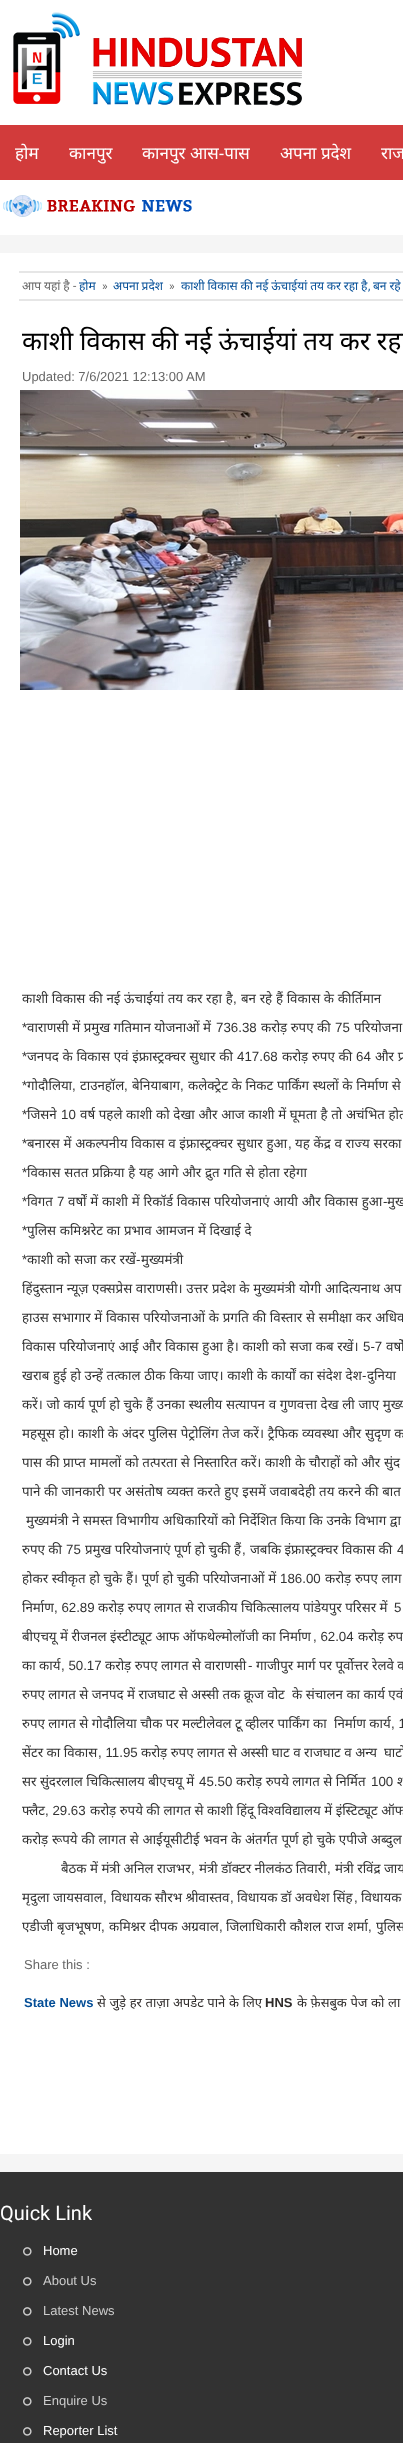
(async () => {
  const canvas = document.querySelector("canvas");
  canvas.width = 403;
  canvas.height = 2443;
  const ctx = canvas.getContext("2d");
  ctx.miterLimit = 4;
  ctx.fontKerning = "normal";
  async function loadImage(src) {
    const img = new Image();
    img.src = src;
    await img.decode();
    return img;
  }

  ctx.fillStyle = "#ffffff";
  ctx.fillRect(0, 0, 403, 2443);
  ctx.drawImage(await loadImage("img/1.png"), 13, 12, 67, 92);
  ctx.drawImage(await loadImage("img/2.png"), 92, 37, 210, 69);
  ctx.fillStyle = "#d23b3b";
  ctx.fillRect(0, 125, 403, 55);
  ctx.drawImage(await loadImage("img/3.png"), 3, 195, 189, 22);
  for (const [x, y, w, h, color] of [
    [0, 235, 403, 1937, "#f5f5f5"],
    [0, 253, 403, 1901, "#ffffff"],
    [19, 271, 384, 2, "#e6e6e6"],
    [19, 299, 384, 2, "#e6e6e6"],
  ]) {
    ctx.fillStyle = color;
    ctx.fillRect(x, y, w, h);
  }
  ctx.drawImage(await loadImage("img/4.png"), 20, 390, 383, 300);
  ctx.fillStyle = "#323232";
  ctx.fillRect(0, 2172, 403, 271);
  ctx.drawImage(await loadImage("img/5.png"), 23, 2247, 9, 9);
  ctx.drawImage(await loadImage("img/5.png"), 23, 2277, 9, 9);
  ctx.drawImage(await loadImage("img/5.png"), 23, 2307, 9, 9);
  ctx.drawImage(await loadImage("img/5.png"), 23, 2337, 9, 9);
  ctx.drawImage(await loadImage("img/5.png"), 23, 2367, 9, 9);
  ctx.drawImage(await loadImage("img/5.png"), 23, 2397, 9, 9);
  ctx.drawImage(await loadImage("img/5.png"), 23, 2427, 9, 9);
  ctx.font = "17px Noto Sans";
  ctx.fillStyle = "#ffffff";
  for (const [text, x, y] of [
    ["होम", 15, 159],
    ["कानपुर", 69, 159],
    ["कानपुर आस-पास", 142, 159],
    ["अपना प्रदेश", 280, 159],
    ["राज", 381, 159],
  ]) {
    ctx.fillText(text, x, y);
  }
  ctx.wordSpacing = "-0.25px";
  ctx.font = "12px Noto Sans";
  ctx.fillStyle = "#666666";
  ctx.fillText("आप यहां है", 22, 290);
  ctx.wordSpacing = "0px";
  ctx.font = "12px Roboto";
  ctx.fillText("-", 73, 290);
  ctx.font = "12px Noto Sans";
  ctx.fillStyle = "#044e97";
  ctx.fillText("होम", 79, 290);
  ctx.font = "12px Roboto";
  ctx.fillStyle = "#666666";
  ctx.fillText("»", 102, 290);
  ctx.wordSpacing = "-0.25px";
  ctx.font = "12px Noto Sans";
  ctx.fillStyle = "#044e97";
  ctx.fillText("अपना प्रदेश", 113, 290);
  ctx.wordSpacing = "0px";
  ctx.font = "12px Roboto";
  ctx.fillStyle = "#666666";
  ctx.fillText("»", 169, 290);
  ctx.wordSpacing = "-0.25px";
  ctx.font = "12px Noto Sans";
  ctx.fillStyle = "#044e97";
  ctx.fillText("काशी विकास की नई ऊंचाईयां तय कर रहा है", 181, 290);
  ctx.fillText("बन रहे", 373, 290);
  ctx.wordSpacing = "0px";
  ctx.font = "12px Roboto";
  ctx.fillText(",", 368, 290);
  ctx.wordSpacing = "-0.25px";
  ctx.font = "26px Noto Sans";
  ctx.fillStyle = "#000000";
  ctx.fillText("काशी विकास की नई ऊंचाईयां तय कर रहा", 22, 350);
  ctx.wordSpacing = "0px";
  ctx.font = "13px Liberation Sans";
  ctx.fillStyle = "#666666";
  ctx.fillText("Updated: 7/6/2021 12:13:00 AM", 22, 381);
  ctx.wordSpacing = "0.25px";
  ctx.font = "13.3px Noto Sans";
  ctx.fillStyle = "#333333";
  ctx.fillText("काशी विकास की नई ऊंचाईयां तय कर रहा है", 22, 1003);
  ctx.wordSpacing = "0px";
  ctx.font = "13.3px Liberation Sans";
  ctx.fillText(",", 233, 1003);
  ctx.wordSpacing = "0.25px";
  ctx.font = "13.3px Noto Sans";
  ctx.fillText("बन रहे हैं विकास के कीर्तिमान", 241, 1003);
  ctx.wordSpacing = "0px";
  ctx.font = "13.3px Liberation Sans";
  ctx.fillText("*", 22, 1032);
  ctx.font = "13.3px Noto Sans";
  ctx.fillText("वाराणसी में प्रमुख गतिमान योजनाओं में", 27, 1032);
  ctx.font = "13.3px Liberation Sans";
  ctx.fillText("736.38", 216, 1032);
  ctx.font = "13.3px Noto Sans";
  ctx.fillText("करोड़ रुपए की", 261, 1032);
  ctx.font = "13.3px Liberation Sans";
  ctx.fillText("75", 335, 1032);
  ctx.font = "13.3px Noto Sans";
  ctx.fillText("परियोजना", 354, 1032);
  ctx.font = "13.3px Liberation Sans";
  ctx.fillText("*", 22, 1061);
  ctx.wordSpacing = "0.25px";
  ctx.font = "13.3px Noto Sans";
  ctx.fillText("जनपद के विकास एवं इंफ्रास्ट्रक्चर सुधार की", 27, 1061);
  ctx.wordSpacing = "0px";
  ctx.font = "13.3px Liberation Sans";
  ctx.fillText("417.68", 237, 1061);
  ctx.wordSpacing = "0.25px";
  ctx.font = "13.3px Noto Sans";
  ctx.fillText("करोड़ रुपए की", 282, 1061);
  ctx.wordSpacing = "0px";
  ctx.font = "13.3px Liberation Sans";
  ctx.fillText("64", 356, 1061);
  ctx.wordSpacing = "0.25px";
  ctx.font = "13.3px Noto Sans";
  ctx.fillText("और प्र", 375, 1061);
  ctx.wordSpacing = "0px";
  ctx.font = "13.3px Liberation Sans";
  ctx.fillText("*", 22, 1090);
  ctx.font = "13.3px Noto Sans";
  ctx.fillText("गोदौलिया", 27, 1090);
  ctx.fillText("टाउनहॉल", 80, 1090);
  ctx.wordSpacing = "0.25px";
  ctx.fillText("कलेक्ट्रेट के निकट पार्किंग स्थलों के निर्माण से", 188, 1090);
  ctx.wordSpacing = "0px";
  ctx.font = "13.3px Liberation Sans";
  ctx.fillText(",", 72, 1090);
  ctx.fillText(",", 124, 1090);
  ctx.font = "13.3px Noto Sans";
  ctx.fillText("बेनियाबाग", 132, 1090);
  ctx.font = "13.3px Liberation Sans";
  ctx.fillText(",", 180, 1090);
  ctx.fillText("*", 22, 1119);
  ctx.font = "13.3px Noto Sans";
  ctx.fillText("जिसने", 27, 1119);
  ctx.font = "13.3px Liberation Sans";
  ctx.fillText("10", 61, 1119);
  ctx.wordSpacing = "0.25px";
  ctx.font = "13.3px Noto Sans";
  ctx.fillText("वर्ष पहले काशी को देखा और आज काशी में घूमता है तो अचंभित होत", 80, 1119);
  ctx.wordSpacing = "0px";
  ctx.font = "13.3px Liberation Sans";
  ctx.fillText("*", 22, 1148);
  ctx.wordSpacing = "0.25px";
  ctx.font = "13.3px Noto Sans";
  ctx.fillText("बनारस में अकल्पनीय विकास व इंफ्रास्ट्रक्चर सुधार हुआ", 27, 1148);
  ctx.fillText("यह केंद्र व राज्य सरका", 295, 1148);
  ctx.wordSpacing = "0px";
  ctx.font = "13.3px Liberation Sans";
  ctx.fillText(",", 288, 1148);
  ctx.fillText("*", 22, 1177);
  ctx.wordSpacing = "0.25px";
  ctx.font = "13.3px Noto Sans";
  ctx.fillText("विकास सतत प्रक्रिया है यह आगे और द्रुत गति से होता रहेगा", 27, 1177);
  ctx.wordSpacing = "0px";
  ctx.font = "13.3px Liberation Sans";
  ctx.fillText("*", 22, 1206);
  ctx.font = "13.3px Noto Sans";
  ctx.fillText("विगत", 27, 1206);
  ctx.font = "13.3px Liberation Sans";
  ctx.fillText("7", 57, 1206);
  ctx.wordSpacing = "0.25px";
  ctx.font = "13.3px Noto Sans";
  ctx.fillText("वर्षों में काशी में रिकॉर्ड विकास परियोजनाएं आयी और विकास हुआ", 68, 1206);
  ctx.wordSpacing = "0px";
  ctx.font = "13.3px Liberation Sans";
  ctx.fillText("-", 383, 1206);
  ctx.wordSpacing = "0.25px";
  ctx.font = "13.3px Noto Sans";
  ctx.fillText("मुख्", 387, 1206);
  ctx.wordSpacing = "0px";
  ctx.font = "13.3px Liberation Sans";
  ctx.fillText("*", 22, 1235);
  ctx.wordSpacing = "0.25px";
  ctx.font = "13.3px Noto Sans";
  ctx.fillText("पुलिस कमिश्नरेट का प्रभाव आमजन में दिखाई दे", 27, 1235);
  ctx.wordSpacing = "0px";
  ctx.font = "13.3px Liberation Sans";
  ctx.fillText("*", 22, 1264);
  ctx.wordSpacing = "0.25px";
  ctx.font = "13.3px Noto Sans";
  ctx.fillText("काशी को सजा कर रखें", 27, 1264);
  ctx.wordSpacing = "0px";
  ctx.font = "13.3px Liberation Sans";
  ctx.fillText("-", 136, 1264);
  ctx.font = "13.3px Noto Sans";
  ctx.fillText("मुख्यमंत्री", 141, 1264);
  ctx.wordSpacing = "0.25px";
  for (const [text, x, y] of [
    ["हिंदुस्तान न्यूज़ एक्सप्रेस वाराणसी। उत्तर प्रदेश के मुख्यमंत्री योगी आदित्यनाथ अप", 22, 1293],
    ["हाउस सभागार में विकास परियोजनाओं के प्रगति की विस्तार से समीक्षा कर अधिक", 22, 1322],
    ["विकास परियोजनाएं आई और विकास हुआ है। काशी को सजा कब रखें।", 22, 1351],
  ]) {
    ctx.fillText(text, x, y);
  }
  ctx.wordSpacing = "0px";
  ctx.font = "13.3px Liberation Sans";
  ctx.fillText("5-7", 363, 1351);
  ctx.wordSpacing = "0.25px";
  ctx.font = "13.3px Noto Sans";
  ctx.fillText("वर्षों", 386, 1351);
  ctx.fillText("खराब हुई हो उन्हें तत्काल ठीक किया जाए। काशी के कार्यों का संदेश देश", 22, 1380);
  ctx.wordSpacing = "0px";
  ctx.font = "13.3px Liberation Sans";
  ctx.fillText("-", 362, 1380);
  ctx.wordSpacing = "0.25px";
  ctx.font = "13.3px Noto Sans";
  for (const [text, x, y] of [
    ["दुनिया", 367, 1380],
    ["करें। जो कार्य पूर्ण हो चुके हैं उनका स्थलीय सत्यापन व गुणवत्ता देख ली जाए मुख्य", 22, 1409],
    ["महसूस हो। काशी के अंदर पुलिस पेट्रोलिंग तेज करें। ट्रैफिक व्यवस्था और सुदृण क", 22, 1438],
    ["पास की प्राप्त मामलों को तत्परता से निस्तारित करें। काशी के चौराहों को और सुंद", 22, 1467],
    ["पाने की जानकारी पर असंतोष व्यक्त करते हुए इसमें जवाबदेही तय करने की बात", 22, 1496],
    ["मुख्यमंत्री ने समस्त विभागीय अधिकारियों को निर्देशित किया कि उनके विभाग द्वा", 26, 1525],
  ]) {
    ctx.fillText(text, x, y);
  }
  ctx.wordSpacing = "0px";
  ctx.fillText("रुपए की", 22, 1554);
  ctx.font = "13.3px Liberation Sans";
  ctx.fillText("75", 66, 1554);
  ctx.font = "13.3px Noto Sans";
  ctx.fillText("प्रमुख परियोजनाएं पूर्ण हो चुकी हैं", 85, 1554);
  ctx.font = "13.3px Liberation Sans";
  ctx.fillText(",", 242, 1554);
  ctx.font = "13.3px Noto Sans";
  ctx.fillText("जबकि इंफ्रास्ट्रक्चर विकास की", 250, 1554);
  ctx.font = "13.3px Liberation Sans";
  ctx.fillText("4", 397, 1554);
  ctx.wordSpacing = "0.25px";
  ctx.font = "13.3px Noto Sans";
  ctx.fillText("होकर स्वीकृत हो चुके हैं। पूर्ण हो चुकी परियोजनाओं में", 22, 1583);
  ctx.wordSpacing = "0px";
  ctx.font = "13.3px Liberation Sans";
  ctx.fillText("186.00", 280, 1583);
  ctx.wordSpacing = "0.25px";
  ctx.font = "13.3px Noto Sans";
  ctx.fillText("करोड़ रुपए लाग", 325, 1583);
  ctx.wordSpacing = "0px";
  ctx.fillText("निर्माण", 22, 1612);
  ctx.font = "13.3px Liberation Sans";
  ctx.fillText(", 62.89", 54, 1612);
  ctx.font = "13.3px Noto Sans";
  ctx.fillText("करोड़ रुपए लागत से राजकीय चिकित्सालय पांडेयपुर परिसर में", 98, 1612);
  ctx.font = "13.3px Liberation Sans";
  ctx.fillText("5", 394, 1612);
  ctx.font = "13.3px Noto Sans";
  ctx.fillText("बीएचयू में रीजनल इंस्टीट्यूट आफ ऑफथेल्मोलॉजी का निर्माण", 22, 1641);
  ctx.font = "13.3px Liberation Sans";
  ctx.fillText(", 62.04", 313, 1641);
  ctx.font = "13.3px Noto Sans";
  ctx.fillText("करोड़ रुप", 358, 1641);
  ctx.fillText("का कार्य", 22, 1670);
  ctx.font = "13.3px Liberation Sans";
  ctx.fillText(", 50.17", 61, 1670);
  ctx.font = "13.3px Noto Sans";
  ctx.fillText("करोड़ रुपए लागत से वाराणसी", 105, 1670);
  ctx.font = "13.3px Liberation Sans";
  ctx.fillText("-", 248, 1670);
  ctx.font = "13.3px Noto Sans";
  for (const [text, x, y] of [
    ["गाजीपुर मार्ग पर पूर्वोत्तर रेलवे क", 256, 1670],
    ["रुपए लागत से जनपद में राजघाट से अस्सी तक क्रूज वोट", 22, 1699],
    ["के संचालन का कार्य एवं", 292, 1699],
    ["रुपए लागत से गोदौलिया चौक पर मल्टीलेवल टू व्हीलर पार्किंग का", 22, 1728],
    ["निर्माण कार्य", 334, 1728],
  ]) {
    ctx.fillText(text, x, y);
  }
  ctx.font = "13.3px Liberation Sans";
  ctx.fillText(", 1", 391, 1728);
  ctx.font = "13.3px Noto Sans";
  ctx.fillText("सेंटर का विकास", 22, 1757);
  ctx.font = "13.3px Liberation Sans";
  ctx.fillText(", 11.95", 98, 1757);
  ctx.font = "13.3px Noto Sans";
  ctx.fillText("करोड़ रुपए लागत से अस्सी घाट व राजघाट व अन्य", 141, 1757);
  ctx.fillText("घाटों", 384, 1757);
  ctx.fillText("सर सुंदरलाल चिकित्सालय बीएचयू में", 22, 1786);
  ctx.font = "13.3px Liberation Sans";
  ctx.fillText("45.50", 199, 1786);
  ctx.font = "13.3px Noto Sans";
  ctx.fillText("करोड़ रुपये लागत से निर्मित", 236, 1786);
  ctx.font = "13.3px Liberation Sans";
  ctx.fillText("100", 371, 1786);
  ctx.font = "13.3px Noto Sans";
  ctx.fillText("श", 397, 1786);
  ctx.fillText("फ्लैट", 22, 1815);
  ctx.font = "13.3px Liberation Sans";
  ctx.fillText(", 29.63", 45, 1815);
  ctx.font = "13.3px Noto Sans";
  ctx.fillText("करोड़ रुपये की लागत से काशी हिंदू विश्वविद्यालय में इंस्टिट्यूट ऑफ", 90, 1815);
  ctx.wordSpacing = "0.25px";
  ctx.fillText("करोड़ रूपये की लागत से आईयूसीटीई भवन के अंतर्गत पूर्ण हो चुके एपीजे अब्दुल", 22, 1844);
  ctx.wordSpacing = "0px";
  ctx.fillText("बैठक में मंत्री अनिल राजभर", 61, 1873);
  ctx.font = "13.3px Liberation Sans";
  ctx.fillText(",", 191, 1873);
  ctx.font = "13.3px Noto Sans";
  ctx.fillText("मंत्री डॉक्टर नीलकंठ तिवारी", 199, 1873);
  ctx.font = "13.3px Liberation Sans";
  ctx.fillText(",", 327, 1873);
  ctx.font = "13.3px Noto Sans";
  ctx.fillText("मंत्री रविंद्र जाय", 335, 1873);
  ctx.fillText("मृदुला जायसवाल", 22, 1902);
  ctx.font = "13.3px Liberation Sans";
  ctx.fillText(",", 103, 1902);
  ctx.font = "13.3px Noto Sans";
  ctx.fillText("विधायक सौरभ श्रीवास्तव", 111, 1902);
  ctx.font = "13.3px Liberation Sans";
  ctx.fillText(",", 230, 1902);
  ctx.font = "13.3px Noto Sans";
  ctx.fillText("विधायक डॉ अवधेश सिंह", 237, 1902);
  ctx.font = "13.3px Liberation Sans";
  ctx.fillText(",", 354, 1902);
  ctx.font = "13.3px Noto Sans";
  ctx.fillText("विधायक", 361, 1902);
  ctx.wordSpacing = "0.25px";
  ctx.fillText("एडीजी बृजभूषण", 22, 1931);
  ctx.wordSpacing = "0px";
  ctx.font = "13.3px Liberation Sans";
  ctx.fillText(",", 101, 1931);
  ctx.wordSpacing = "0.25px";
  ctx.font = "13.3px Noto Sans";
  ctx.fillText("कमिश्नर दीपक अग्रवाल", 109, 1931);
  ctx.wordSpacing = "0px";
  ctx.font = "13.3px Liberation Sans";
  ctx.fillText(",", 219, 1931);
  ctx.wordSpacing = "0.25px";
  ctx.font = "13.3px Noto Sans";
  ctx.fillText("जिलाधिकारी कौशल राज शर्मा", 226, 1931);
  ctx.wordSpacing = "0px";
  ctx.font = "13.3px Liberation Sans";
  ctx.fillText(",", 368, 1931);
  ctx.wordSpacing = "0.25px";
  ctx.font = "13.3px Noto Sans";
  ctx.fillText("पुलिस", 376, 1931);
  ctx.wordSpacing = "0px";
  ctx.font = "13px Liberation Sans";
  ctx.fillStyle = "#666666";
  ctx.fillText("Share this :", 24, 1969);
  ctx.font = "bold 13px Liberation Sans";
  ctx.fillStyle = "#044e97";
  ctx.fillText("State News", 24, 2007);
  ctx.wordSpacing = "0.25px";
  ctx.font = "13px Noto Sans";
  ctx.fillStyle = "#2f2b2a";
  ctx.fillText("से जुड़े हर ताज़ा अपडेट पाने के लिए", 97, 2007);
  ctx.wordSpacing = "0px";
  ctx.font = "bold 13px Liberation Sans";
  ctx.fillText("HNS", 265, 2007);
  ctx.wordSpacing = "0.25px";
  ctx.font = "13px Noto Sans";
  ctx.fillText("के फ़ेसबुक पेज को ला", 297, 2007);
  ctx.wordSpacing = "0px";
  ctx.font = "20px Roboto";
  ctx.fillStyle = "#ffffff";
  ctx.fillText("Quick Link", 0, 2220);
  ctx.font = "13px Liberation Sans";
  ctx.fillText("Home", 43, 2255);
  ctx.fillStyle = "#cccccc";
  ctx.fillText("About Us", 43, 2285);
  ctx.fillText("Latest News", 43, 2315);
  ctx.fillStyle = "#ffffff";
  ctx.fillText("Login", 43, 2345);
  ctx.fillText("Contact Us", 43, 2375);
  ctx.fillStyle = "#cccccc";
  ctx.fillText("Enquire Us", 43, 2405);
  ctx.fillStyle = "#ffffff";
  ctx.fillText("Reporter List", 43, 2435);
})();
